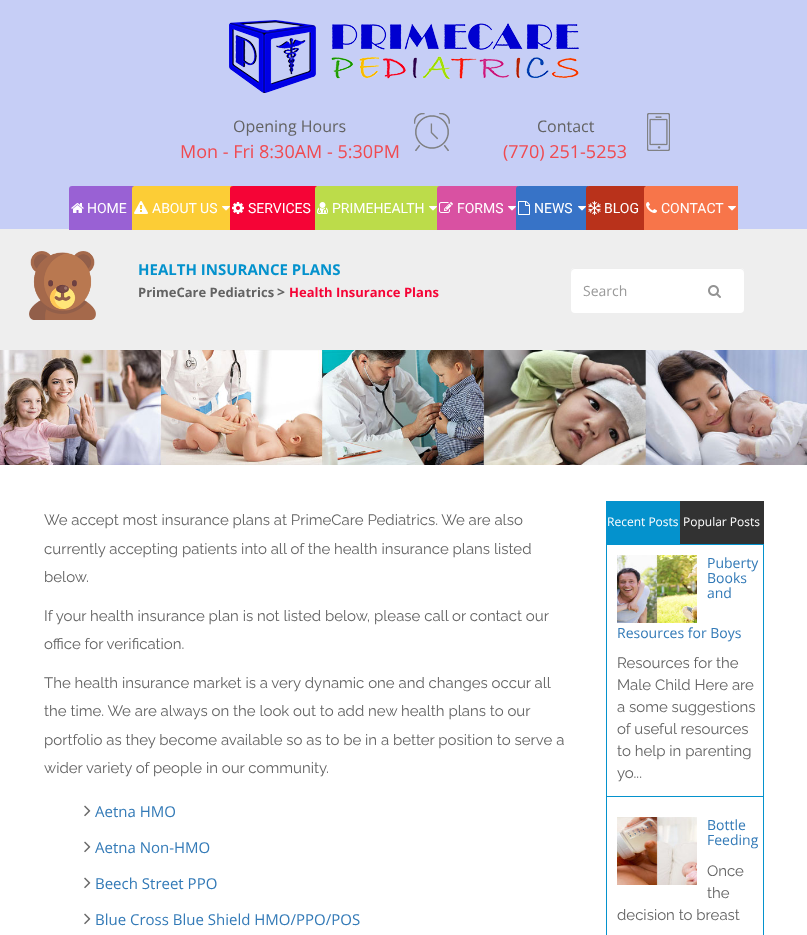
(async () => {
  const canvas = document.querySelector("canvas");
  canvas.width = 807;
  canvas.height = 935;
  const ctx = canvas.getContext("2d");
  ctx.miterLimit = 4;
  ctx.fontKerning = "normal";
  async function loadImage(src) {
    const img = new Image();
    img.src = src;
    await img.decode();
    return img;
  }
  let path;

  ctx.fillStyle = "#ffffff";
  ctx.fillRect(0, 0, 807, 935);
  ctx.fillStyle = "#c6cef6";
  ctx.fillRect(0, 0, 807, 229);
  ctx.fillStyle = "#eeeeee";
  ctx.fillRect(0, 229, 807, 121);
  ctx.drawImage(await loadImage("img/1.png"), 229, 20, 350, 73);
  ctx.drawImage(await loadImage("img/2.png"), 414, 113, 36, 38);
  ctx.drawImage(await loadImage("img/3.png"), 647, 113, 23, 38);
  ctx.fillStyle = "#9961d4";
  ctx.beginPath();
  ctx.roundRect(69, 186, 65, 44, [3, 0, 0, 0]);
  ctx.fill();
  ctx.drawImage(await loadImage("img/4.png"), 71, 203, 13, 10);
  ctx.fillStyle = "#fccd36";
  ctx.beginPath();
  ctx.roundRect(132, 186, 100, 44, [3, 0, 0, 0]);
  ctx.fill();
  ctx.drawImage(await loadImage("img/5.png"), 134, 201, 14, 13);
  ctx.drawImage(await loadImage("img/6.png"), 222, 206, 8, 5);
  ctx.fillStyle = "#f50436";
  ctx.beginPath();
  ctx.roundRect(230, 186, 87, 44, [3, 0, 0, 0]);
  ctx.fill();
  ctx.drawImage(await loadImage("img/7.png"), 232, 202, 12, 12);
  ctx.fillStyle = "#bcdc4a";
  ctx.beginPath();
  ctx.roundRect(315, 186, 124, 44, [3, 0, 0, 0]);
  ctx.fill();
  ctx.drawImage(await loadImage("img/8.png"), 317, 202, 11, 12);
  ctx.drawImage(await loadImage("img/9.png"), 429, 206, 8, 5);
  ctx.fillStyle = "#d951a2";
  ctx.beginPath();
  ctx.roundRect(437, 186, 81, 44, [3, 0, 0, 0]);
  ctx.fill();
  ctx.drawImage(await loadImage("img/10.png"), 439, 202, 14, 11);
  ctx.drawImage(await loadImage("img/11.png"), 508, 206, 8, 5);
  ctx.fillStyle = "#3773c7";
  ctx.beginPath();
  ctx.roundRect(516, 186, 72, 44, [3, 0, 0, 0]);
  ctx.fill();
  ctx.drawImage(await loadImage("img/12.png"), 518, 201, 12, 14);
  ctx.drawImage(await loadImage("img/13.png"), 578, 206, 8, 5);
  ctx.fillStyle = "#b9321b";
  ctx.beginPath();
  ctx.roundRect(586, 186, 60, 44, [3, 0, 0, 0]);
  ctx.fill();
  ctx.drawImage(await loadImage("img/14.png"), 588, 201, 13, 14);
  ctx.fillStyle = "#f7754a";
  ctx.beginPath();
  ctx.roundRect(644, 186, 94, 44, [3, 0, 0, 0]);
  ctx.fill();
  ctx.drawImage(await loadImage("img/15.png"), 646, 202, 11, 11);
  ctx.drawImage(await loadImage("img/16.png"), 728, 206, 8, 5);
  ctx.drawImage(await loadImage("img/17.png"), 29, 251, 67, 69);
  ctx.fillStyle = "#ffffff";
  ctx.beginPath();
  ctx.roundRect(571, 268, 173, 45, 4);
  ctx.fill();
  ctx.fillStyle = "rgba(0, 0, 0, 0.07)";
  path = new Path2D("M575 269H740C742 269 744 271 744 273V272C744 270 742 268 740 268H575C573 268 571 270 571 272V273C571 271 573 269 575 269Z");
  ctx.fill(path);
  ctx.drawImage(await loadImage("img/18.png"), 708, 285, 13, 13);
  ctx.drawImage(await loadImage("img/19.png"), 0, 350, 807, 115);
  ctx.drawImage(await loadImage("img/20.png"), 84, 805, 7, 12);
  ctx.drawImage(await loadImage("img/20.png"), 84, 841, 7, 12);
  ctx.drawImage(await loadImage("img/20.png"), 84, 877, 7, 12);
  ctx.drawImage(await loadImage("img/20.png"), 84, 913, 7, 12);
  for (const [x, y, w, h, color] of [
    [680, 501, 84, 43, "#323232"],
    [606, 501, 74, 43, "#0492cd"],
    [606, 544, 158, 1, "#0492cd"],
    [763, 544, 1, 391, "#0492cd"],
    [606, 544, 1, 391, "#0492cd"],
    [607, 796, 156, 1, "#0492cd"],
  ]) {
    ctx.fillStyle = color;
    ctx.fillRect(x, y, w, h);
  }
  ctx.drawImage(await loadImage("img/21.png"), 617, 555, 80, 68);
  ctx.drawImage(await loadImage("img/22.png"), 617, 817, 80, 68);
  ctx.font = "16px Open Sans";
  ctx.fillStyle = "#636363";
  ctx.fillText("Opening Hours", 233, 132);
  ctx.font = "18px Open Sans";
  ctx.fillStyle = "#f04a50";
  ctx.fillText("Mon - Fri 8:30AM - 5:30PM", 180, 158);
  ctx.font = "16px Open Sans";
  ctx.fillStyle = "#636363";
  ctx.fillText("Contact", 537, 132);
  ctx.font = "18px Open Sans";
  ctx.fillStyle = "#f04a50";
  ctx.fillText("(770) 251-5253", 503, 158);
  ctx.font = "14px Roboto";
  ctx.fillStyle = "#ffffff";
  for (const [text, x, y] of [
    ["HOME", 87, 213],
    ["ABOUT US", 152, 213],
    ["SERVICES", 248, 213],
    ["PRIMEHEALTH", 332, 213],
    ["FORMS", 457, 213],
    ["NEWS", 534, 213],
    ["BLOG", 604, 213],
    ["CONTACT", 661, 213],
  ]) {
    ctx.fillText(text, x, y);
  }
  ctx.font = "bold 15px Open Sans";
  ctx.fillStyle = "#0492cd";
  ctx.fillText("HEALTH INSURANCE PLANS", 138, 275);
  ctx.font = "bold 13px Open Sans";
  ctx.fillStyle = "#636363";
  ctx.fillText("PrimeCare Pediatrics", 138, 297);
  ctx.font = "bold 14px Open Sans";
  ctx.fillText(">", 277, 297);
  ctx.font = "bold 13px Open Sans";
  ctx.fillStyle = "#f50436";
  ctx.fillText("Health Insurance Plans", 289, 297);
  ctx.font = "14px Open Sans";
  ctx.fillStyle = "#999999";
  ctx.fillText("Search", 583, 296);
  ctx.font = "15px Raleway";
  ctx.fillStyle = "#636363";
  for (const [text, x, y] of [
    ["We accept most insurance plans at PrimeCare Pediatrics. We are also", 44, 525],
    ["currently accepting patients into all of the health insurance plans listed", 44, 554],
    ["below.", 44, 582],
    ["If your health insurance plan is not listed below, please call or contact our", 44, 621],
    ["office for verification.", 44, 649],
    ["The health insurance market is a very dynamic one and changes occur all", 44, 688],
    ["the time. We are always on the look out to add new health plans to our", 44, 716],
    ["portfolio as they become available so as to be in a better position to serve a", 44, 745],
    ["wider variety of people in our community.", 44, 773],
  ]) {
    ctx.fillText(text, x, y);
  }
  ctx.font = "15px Open Sans";
  ctx.fillStyle = "#337ab7";
  for (const [text, x, y] of [
    ["Aetna HMO", 95, 817],
    ["Aetna Non-HMO", 95, 853],
    ["Beech Street PPO", 95, 889],
    ["Blue Cross Blue Shield HMO/PPO/POS", 95, 925],
  ]) {
    ctx.fillText(text, x, y);
  }
  ctx.font = "12px Open Sans";
  ctx.fillStyle = "#ffffff";
  ctx.fillText("Recent Posts", 607, 526);
  ctx.fillText("Popular Posts", 683, 526);
  ctx.font = "14px Open Sans";
  ctx.fillStyle = "#337ab7";
  for (const [text, x, y] of [
    ["Puberty", 707, 568],
    ["Books", 707, 583],
    ["and", 707, 598],
    ["Resources for Boys", 617, 638],
  ]) {
    ctx.fillText(text, x, y);
  }
  ctx.font = "15px Raleway";
  ctx.fillStyle = "#636363";
  for (const [text, x, y] of [
    ["Resources for the", 617, 668],
    ["Male Child Here are", 617, 690],
    ["a some suggestions", 617, 712],
    ["of useful resources", 617, 734],
    ["to help in parenting", 617, 756],
    ["yo...", 617, 778],
  ]) {
    ctx.fillText(text, x, y);
  }
  ctx.font = "14px Open Sans";
  ctx.fillStyle = "#337ab7";
  ctx.fillText("Bottle", 707, 830);
  ctx.fillText("Feeding", 707, 845);
  ctx.font = "15px Raleway";
  ctx.fillStyle = "#636363";
  for (const [text, x, y] of [
    ["Once", 707, 876],
    ["the", 707, 898],
    ["decision to breast", 617, 920],
  ]) {
    ctx.fillText(text, x, y);
  }
})();
